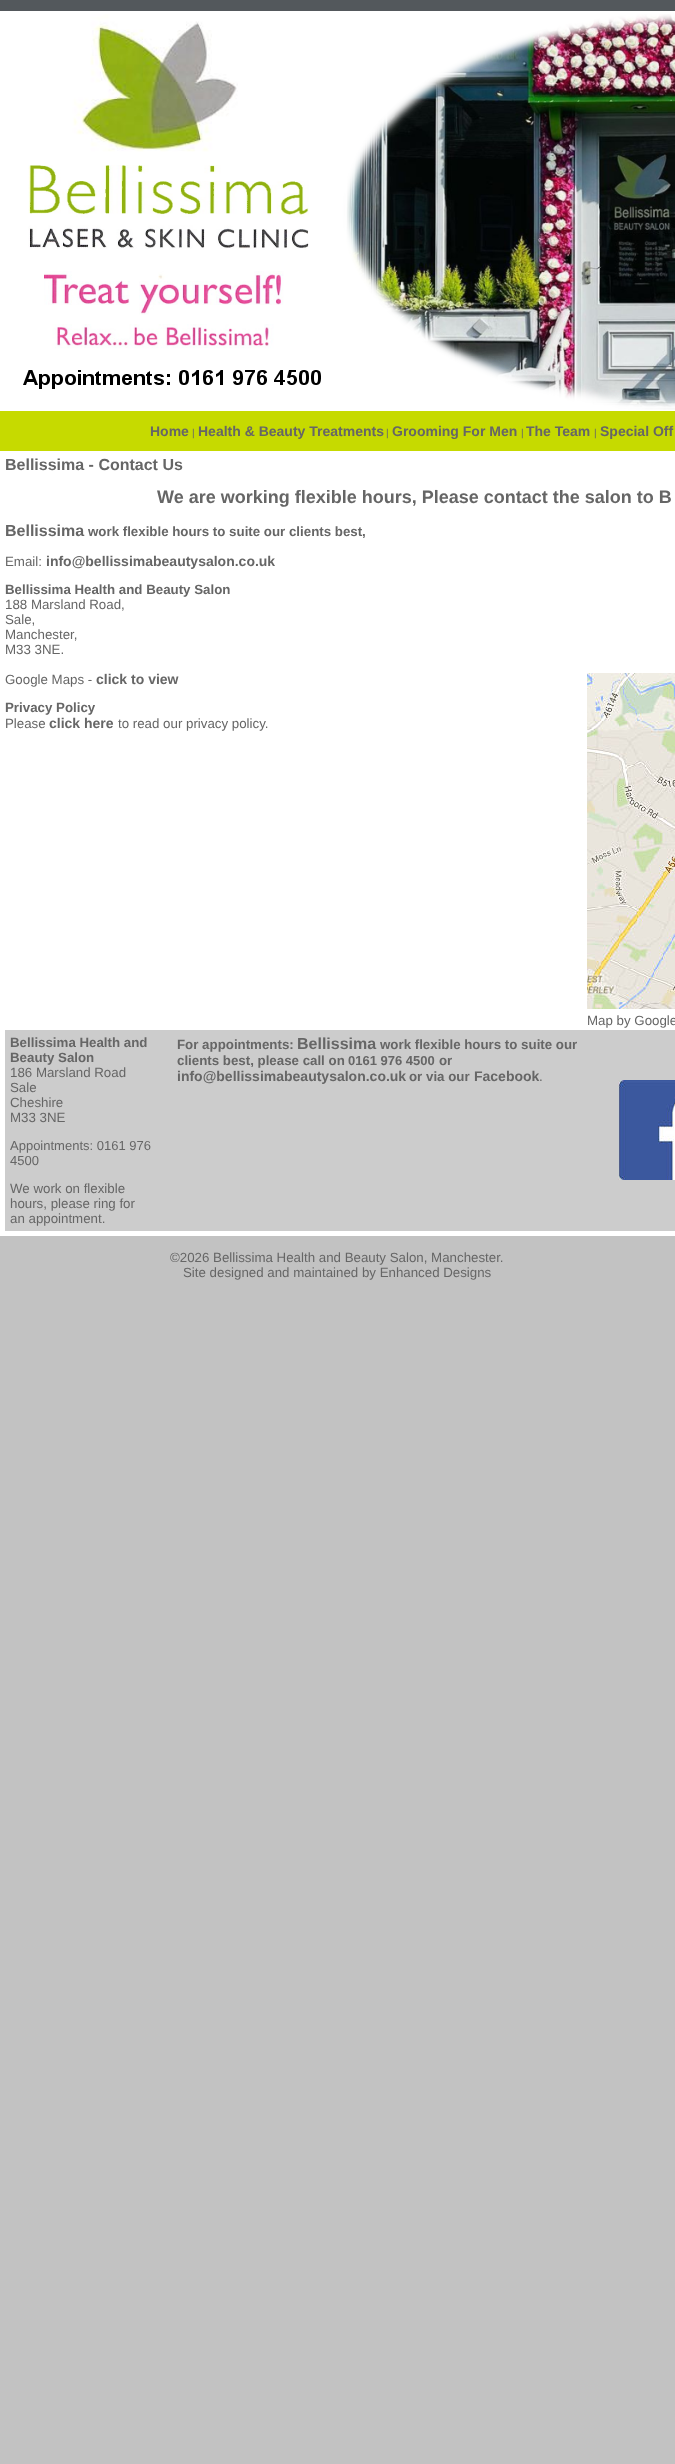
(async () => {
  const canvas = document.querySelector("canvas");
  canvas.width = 675;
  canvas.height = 2464;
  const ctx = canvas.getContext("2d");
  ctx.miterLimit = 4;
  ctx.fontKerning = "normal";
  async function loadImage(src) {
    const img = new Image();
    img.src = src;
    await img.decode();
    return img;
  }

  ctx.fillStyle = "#c2c2c2";
  ctx.fillRect(0, 0, 675, 2464);
  ctx.drawImage(await loadImage("img/1.png"), 0, 0, 675, 11);
  ctx.fillStyle = "#ffffff";
  ctx.fillRect(0, 11, 675, 400);
  ctx.drawImage(await loadImage("img/2.png"), 23, 14, 652, 396);
  ctx.fillStyle = "#c6da00";
  ctx.fillRect(0, 411, 675, 40);
  ctx.fillStyle = "#ffffff";
  ctx.fillRect(0, 451, 675, 785);
  ctx.drawImage(await loadImage("img/3.png"), 587, 673, 88, 336);
  ctx.fillStyle = "#cccccc";
  ctx.fillRect(5, 1030, 670, 201);
  ctx.drawImage(await loadImage("img/4.png"), 618, 1080, 57, 100);
  ctx.font = "bold 14px Liberation Sans";
  ctx.fillStyle = "#666666";
  ctx.fillText("Home", 150, 436);
  ctx.font = "10px Liberation Sans";
  ctx.fillText("|", 192, 436);
  ctx.font = "bold 14px Liberation Sans";
  ctx.fillText("Health & Beauty Treatments", 198, 436);
  ctx.font = "10px Liberation Sans";
  ctx.fillText("|", 386, 436);
  ctx.font = "bold 14px Liberation Sans";
  ctx.fillText("Grooming For Men", 392, 436);
  ctx.font = "10px Liberation Sans";
  ctx.fillText("|", 521, 436);
  ctx.font = "bold 14px Liberation Sans";
  ctx.fillText("The Team", 526, 436);
  ctx.font = "10px Liberation Sans";
  ctx.fillText("|", 594, 436);
  ctx.font = "bold 14px Liberation Sans";
  ctx.fillText("Special Off", 600, 436);
  ctx.font = "bold 16px Liberation Sans";
  ctx.fillText("Bellissima - Contact Us", 5, 470);
  ctx.font = "bold 18px Liberation Sans";
  ctx.fillText("We are working flexible hours, Please contact the salon to B", 157, 503);
  ctx.font = "bold 16px Liberation Sans";
  ctx.fillText("Bellissima", 5, 536);
  ctx.font = "bold 13.3px Liberation Sans";
  ctx.fillText("work flexible hours to suite our clients best,", 88, 536);
  ctx.font = "13.3px Liberation Sans";
  ctx.fillText("Email:", 5, 566);
  ctx.font = "bold 14px Liberation Sans";
  ctx.fillText("info@bellissimabeautysalon.co.uk", 46, 566);
  ctx.font = "bold 13.3px Liberation Sans";
  ctx.fillText("Bellissima Health and Beauty Salon", 5, 594);
  ctx.font = "13.3px Liberation Sans";
  for (const [text, x, y] of [
    ["188 Marsland Road,", 5, 609],
    ["Sale,", 5, 624],
    ["Manchester,", 5, 639],
    ["M33 3NE.", 5, 654],
    ["Google Maps -", 5, 684],
  ]) {
    ctx.fillText(text, x, y);
  }
  ctx.font = "bold 14px Liberation Sans";
  ctx.fillText("click to view", 96, 684);
  ctx.font = "bold 13.3px Liberation Sans";
  ctx.fillText("Privacy Policy", 5, 712);
  ctx.font = "13.3px Liberation Sans";
  ctx.fillText("Please", 5, 728);
  ctx.font = "bold 14px Liberation Sans";
  ctx.fillText("click here", 49, 728);
  ctx.font = "13.3px Liberation Sans";
  ctx.fillText("to read our privacy policy.", 118, 728);
  ctx.fillText("Map by Google", 587, 1025);
  ctx.font = "bold 13.3px Liberation Sans";
  ctx.fillText("Bellissima Health and", 10, 1047);
  ctx.fillText("Beauty Salon", 10, 1062);
  ctx.font = "13.3px Liberation Sans";
  for (const [text, x, y] of [
    ["186 Marsland Road", 10, 1077],
    ["Sale", 10, 1092],
    ["Cheshire", 10, 1107],
    ["M33 3NE", 10, 1122],
  ]) {
    ctx.fillText(text, x, y);
  }
  ctx.font = "13px Liberation Sans";
  ctx.fillText("Appointments: 0161 976", 10, 1150);
  ctx.fillText("4500", 10, 1165);
  ctx.font = "13.3px Liberation Sans";
  for (const [text, x, y] of [
    ["We work on flexible", 10, 1193],
    ["hours, please ring for", 10, 1208],
    ["an appointment.", 10, 1223],
  ]) {
    ctx.fillText(text, x, y);
  }
  ctx.font = "bold 13.3px Liberation Sans";
  ctx.fillText("For appointments:", 177, 1049);
  ctx.font = "bold 16px Liberation Sans";
  ctx.fillText("Bellissima", 297, 1049);
  ctx.font = "bold 13.3px Liberation Sans";
  ctx.fillText("work flexible hours to suite our", 380, 1049);
  ctx.fillText("clients best, please call on", 177, 1065);
  ctx.font = "bold 13px Liberation Sans";
  ctx.fillText("0161 976 4500", 348, 1065);
  ctx.font = "bold 13.3px Liberation Sans";
  ctx.fillText("or", 439, 1065);
  ctx.font = "bold 14px Liberation Sans";
  ctx.fillText("info@bellissimabeautysalon.co.uk", 177, 1081);
  ctx.font = "bold 13.3px Liberation Sans";
  ctx.fillText("or via our", 409, 1081);
  ctx.font = "bold 14px Liberation Sans";
  ctx.fillText("Facebook", 474, 1081);
  ctx.font = "13.3px Liberation Sans";
  for (const [text, x, y] of [
    [".", 539, 1081],
    ["©2026 Bellissima Health and Beauty Salon, Manchester.", 170, 1262],
    ["Site designed and maintained by Enhanced Designs", 183, 1277],
  ]) {
    ctx.fillText(text, x, y);
  }
})();
